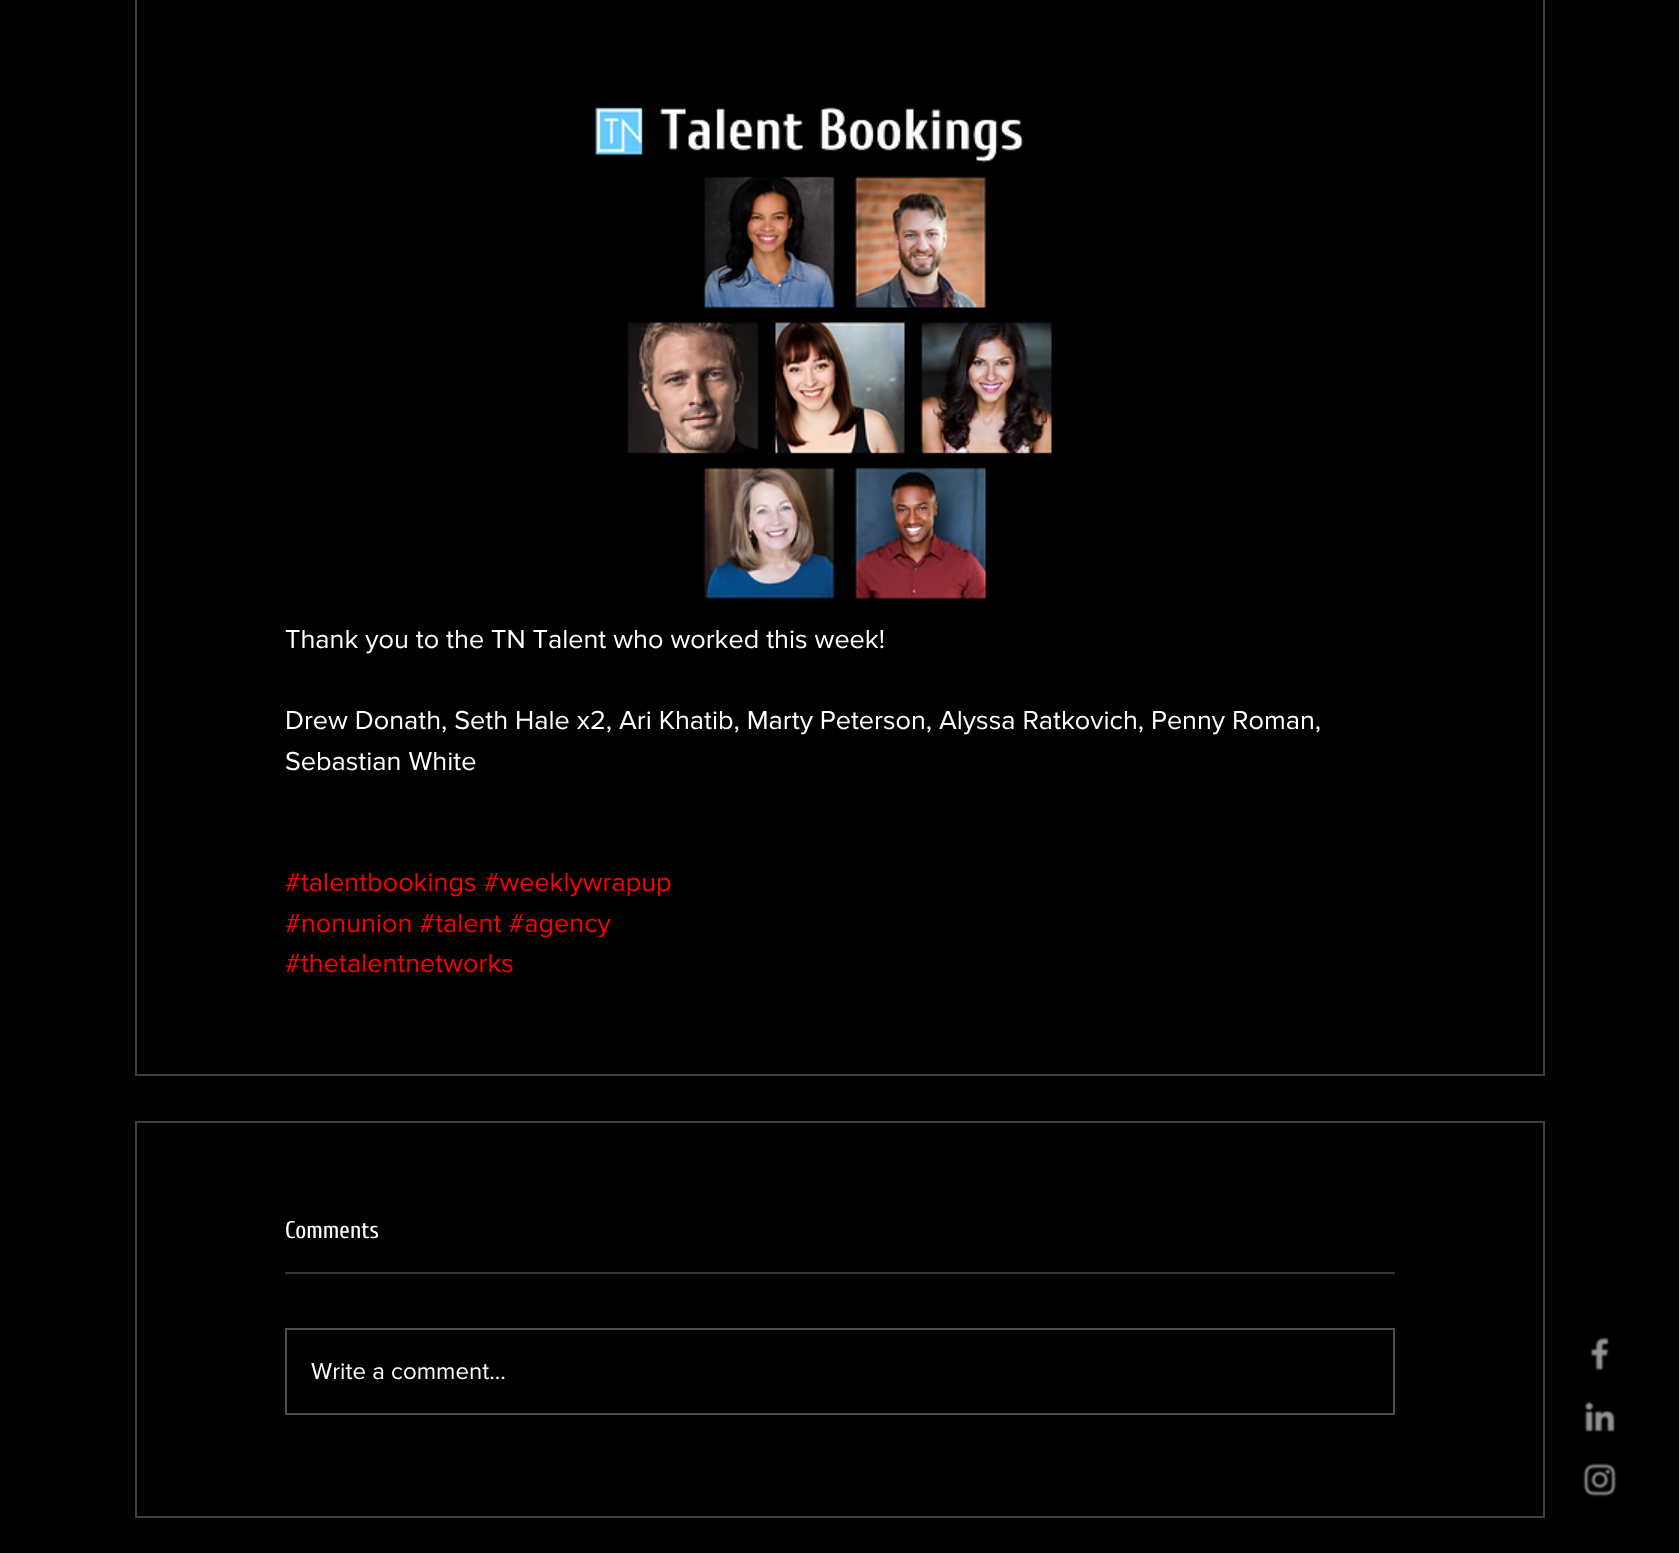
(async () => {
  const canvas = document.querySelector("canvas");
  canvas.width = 1679;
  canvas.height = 1553;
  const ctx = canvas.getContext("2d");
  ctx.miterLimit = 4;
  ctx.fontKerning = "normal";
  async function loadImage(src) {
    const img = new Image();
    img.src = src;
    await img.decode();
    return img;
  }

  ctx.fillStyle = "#000000";
  ctx.fillRect(0, 0, 1679, 1553);
  ctx.strokeStyle = "#414141";
  ctx.lineWidth = 2;
  ctx.strokeRect(136, -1, 1408, 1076);
  ctx.drawImage(await loadImage("img/1.png"), 595, 107, 457, 492);
  ctx.strokeRect(136, 1122, 1408, 395);
  ctx.fillStyle = "#333333";
  ctx.fillRect(285, 1272, 1110, 2);
  ctx.strokeStyle = "#4d4d4d";
  ctx.strokeRect(286, 1329, 1108, 85);
  ctx.drawImage(await loadImage("img/2.png"), 1590, 1337, 19, 34);
  ctx.drawImage(await loadImage("img/3.png"), 1584, 1401, 31, 31);
  ctx.drawImage(await loadImage("img/4.png"), 1583, 1463, 34, 34);
  ctx.font = "27px 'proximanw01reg'";
  ctx.fillStyle = "#ffffff";
  for (const [text, x, y] of [
    ["Thank you to the TN Talent who worked this week!", 285, 648],
    ["Drew Donath, Seth Hale x2, Ari Khatib, Marty Peterson, Alyssa Ratkovich, Penny Roman,", 285, 729],
    ["Sebastian White", 285, 770],
  ]) {
    ctx.fillText(text, x, y);
  }
  ctx.fillStyle = "#fc0000";
  for (const [text, x, y] of [
    ["#talentbookings #weeklywrapup", 285, 891],
    ["#nonunion #talent #agency", 285, 932],
    ["#thetalentnetworks", 285, 972],
  ]) {
    ctx.fillText(text, x, y);
  }
  ctx.font = "24px Cuprum";
  ctx.fillStyle = "#ffffff";
  ctx.fillText("Comments", 285, 1238);
  ctx.font = "24px 'proximanw01reg'";
  ctx.fillText("Write a comment...", 311, 1379);
})();
